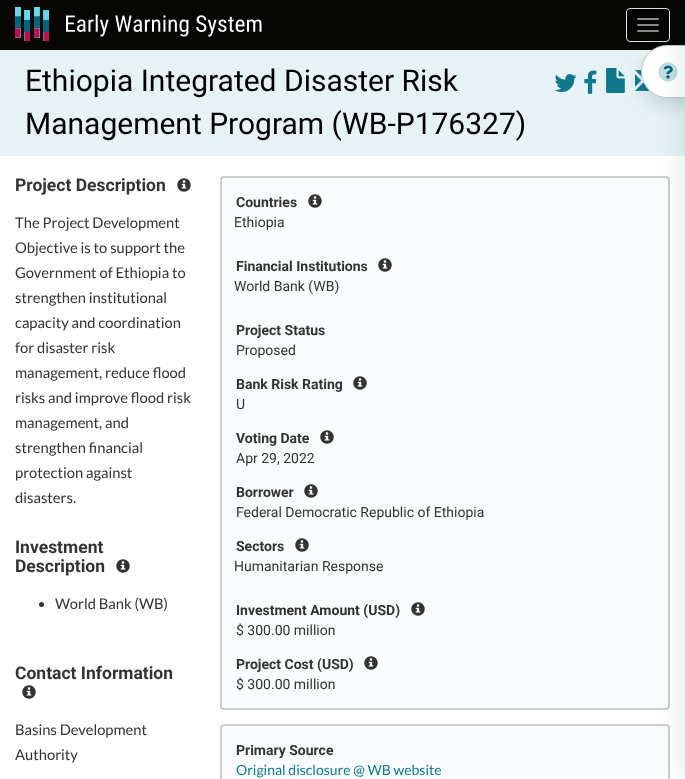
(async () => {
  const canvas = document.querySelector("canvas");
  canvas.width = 685;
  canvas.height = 779;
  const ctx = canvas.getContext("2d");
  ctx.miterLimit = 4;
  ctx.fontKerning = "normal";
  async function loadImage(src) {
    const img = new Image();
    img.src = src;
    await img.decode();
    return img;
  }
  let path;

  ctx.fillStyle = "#ffffff";
  ctx.fillRect(0, 0, 685, 779);
  ctx.fillStyle = "#050504";
  ctx.fillRect(0, 0, 685, 50);
  ctx.drawImage(await loadImage("img/1.png"), 15, 7, 247, 34);
  ctx.beginPath();
  ctx.roundRect(626.5, 8.5, 43, 33, 3.5);
  ctx.strokeStyle = "#dddddd";
  ctx.stroke();
  ctx.fillStyle = "#888888";
  ctx.beginPath();
  ctx.roundRect(637, 18, 22, 2, 1);
  ctx.fill();
  ctx.beginPath();
  ctx.roundRect(637, 24, 22, 2, 1);
  ctx.fill();
  ctx.beginPath();
  ctx.roundRect(637, 30, 22, 2, 1);
  ctx.fill();
  ctx.fillStyle = "#e6f2f4";
  ctx.fillRect(0, 50, 685, 106);
  ctx.drawImage(await loadImage("img/5.png"), 635, 70, 15, 21);
  ctx.drawImage(await loadImage("img/4.png"), 606, 68, 19, 25);
  ctx.fillStyle = "rgba(14, 56, 65, 0.15)";
  ctx.filter = "blur(8px)";
  ctx.beginPath();
  ctx.roundRect(641, 53, 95, 53, 26.5);
  ctx.fill();
  ctx.filter = "none";
  ctx.fillStyle = "#ffffff";
  path = new Path2D("M667.5 45H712V98H667.5C653 98 641 86 641 71.5C641 57 653 45 667.5 45Z");
  ctx.fill(path);
  path = new Path2D("M667.5 45.5H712.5V97.5H667.5C653 97.5 641.5 86 641.5 71.5C641.5 57 653 45.5 667.5 45.5Z");
  ctx.strokeStyle = "rgba(19, 73, 84, 0.3)";
  ctx.stroke(path);
  ctx.drawImage(await loadImage("img/6.png"), 658, 62, 20, 20);
  ctx.fillStyle = "#fafdfd";
  ctx.beginPath();
  ctx.roundRect(221, 177, 448, 532, 3);
  ctx.fill();
  ctx.strokeStyle = "#cccccc";
  ctx.lineWidth = 2;
  ctx.stroke();
  ctx.beginPath();
  ctx.roundRect(221, 725, 448, 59, 3);
  ctx.fill();
  ctx.stroke();
  ctx.fillStyle = "rgba(14, 56, 65, 0.1)";
  ctx.filter = "blur(12px)";
  ctx.beginPath();
  ctx.rect(681, 0, 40, 779);
  ctx.fill();
  ctx.filter = "none";
  ctx.drawImage(await loadImage("img/2.png"), 554, 74, 23, 18);
  ctx.drawImage(await loadImage("img/3.png"), 584, 70, 13, 24);
  ctx.drawImage(await loadImage("img/7.png"), 177, 178, 14, 14);
  ctx.drawImage(await loadImage("img/8.png"), 308, 194, 14, 14);
  ctx.drawImage(await loadImage("img/8.png"), 378, 258, 14, 14);
  ctx.drawImage(await loadImage("img/8.png"), 353, 376, 14, 14);
  ctx.drawImage(await loadImage("img/8.png"), 320, 430, 14, 14);
  ctx.drawImage(await loadImage("img/8.png"), 304, 484, 14, 14);
  ctx.drawImage(await loadImage("img/8.png"), 295, 538, 14, 14);
  ctx.drawImage(await loadImage("img/8.png"), 411, 602, 14, 14);
  ctx.drawImage(await loadImage("img/8.png"), 364, 656, 14, 14);
  ctx.drawImage(await loadImage("img/7.png"), 116, 559, 14, 14);
  ctx.fillStyle = "#333333";
  ctx.beginPath();
  ctx.arc(41.5, 604.5, 2.5, 0, Math.PI * 2);
  ctx.fill();
  ctx.drawImage(await loadImage("img/7.png"), 22, 685, 14, 14);
  ctx.font = "30px Roboto";
  ctx.fillStyle = "#000000";
  ctx.fillText("Ethiopia Integrated Disaster Risk", 25, 91);
  ctx.fillText("Management Program (WB-P176327)", 25, 134);
  ctx.font = "bold 17.5px Roboto";
  ctx.fillStyle = "#333333";
  ctx.fillText("Project Description", 15, 191);
  ctx.font = "14.75px Lato";
  for (const [text, x, y] of [
    ["The Project Development", 15, 228],
    ["Objective is to support the", 15, 253],
    ["Government of Ethiopia to", 15, 278],
    ["strengthen institutional", 15, 303],
    ["capacity and coordination", 15, 328],
    ["for disaster risk", 15, 353],
    ["management, reduce flood", 15, 378],
    ["risks and improve flood risk", 15, 403],
    ["management, and", 15, 428],
    ["strengthen financial", 15, 453],
    ["protection against", 15, 478],
    ["disasters.", 15, 503],
  ]) {
    ctx.fillText(text, x, y);
  }
  ctx.font = "bold 14px Roboto";
  ctx.fillText("Countries", 236, 207);
  ctx.font = "14px Roboto";
  ctx.fillText("Ethiopia", 234, 227);
  ctx.font = "bold 14px Roboto";
  ctx.fillText("Financial Institutions", 236, 271);
  ctx.font = "14px Roboto";
  ctx.fillText("World Bank (WB)", 234, 291);
  ctx.font = "bold 14px Roboto";
  ctx.fillText("Project Status", 236, 335);
  ctx.font = "14px Roboto";
  ctx.fillText("Proposed", 236, 355);
  ctx.font = "bold 14px Roboto";
  ctx.fillText("Bank Risk Rating", 236, 389);
  ctx.font = "14px Roboto";
  ctx.fillText("U", 236, 409);
  ctx.font = "bold 14px Roboto";
  ctx.fillText("Voting Date", 236, 443);
  ctx.font = "14px Roboto";
  ctx.fillText("Apr 29, 2022", 236, 463);
  ctx.font = "bold 14px Roboto";
  ctx.fillText("Borrower", 236, 497);
  ctx.font = "14px Roboto";
  ctx.fillText("Federal Democratic Republic of Ethiopia", 236, 517);
  ctx.font = "bold 14px Roboto";
  ctx.fillText("Sectors", 236, 551);
  ctx.font = "14px Roboto";
  ctx.fillText("Humanitarian Response", 234, 571);
  ctx.font = "bold 14px Roboto";
  ctx.fillText("Investment Amount (USD)", 236, 615);
  ctx.font = "14px Roboto";
  ctx.fillText("$ 300.00 million", 236, 635);
  ctx.font = "bold 14px Roboto";
  ctx.fillText("Project Cost (USD)", 236, 669);
  ctx.font = "14px Roboto";
  ctx.fillText("$ 300.00 million", 236, 689);
  ctx.font = "bold 14px Roboto";
  ctx.fillText("Primary Source", 236, 755);
  ctx.font = "14px Lato";
  ctx.fillStyle = "#0f778e";
  ctx.fillText("Original disclosure @ WB website", 236, 775);
  ctx.font = "bold 17.5px Roboto";
  ctx.fillStyle = "#333333";
  ctx.fillText("Investment", 15, 553);
  ctx.fillText("Description", 15, 572);
  ctx.font = "14.75px Lato";
  ctx.fillText("World Bank (WB)", 55, 609);
  ctx.font = "bold 17.5px Roboto";
  ctx.fillText("Contact Information", 15, 679);
  ctx.font = "14.75px Lato";
  ctx.fillText("Basins Development", 15, 735);
  ctx.fillText("Authority", 15, 760);
})();
